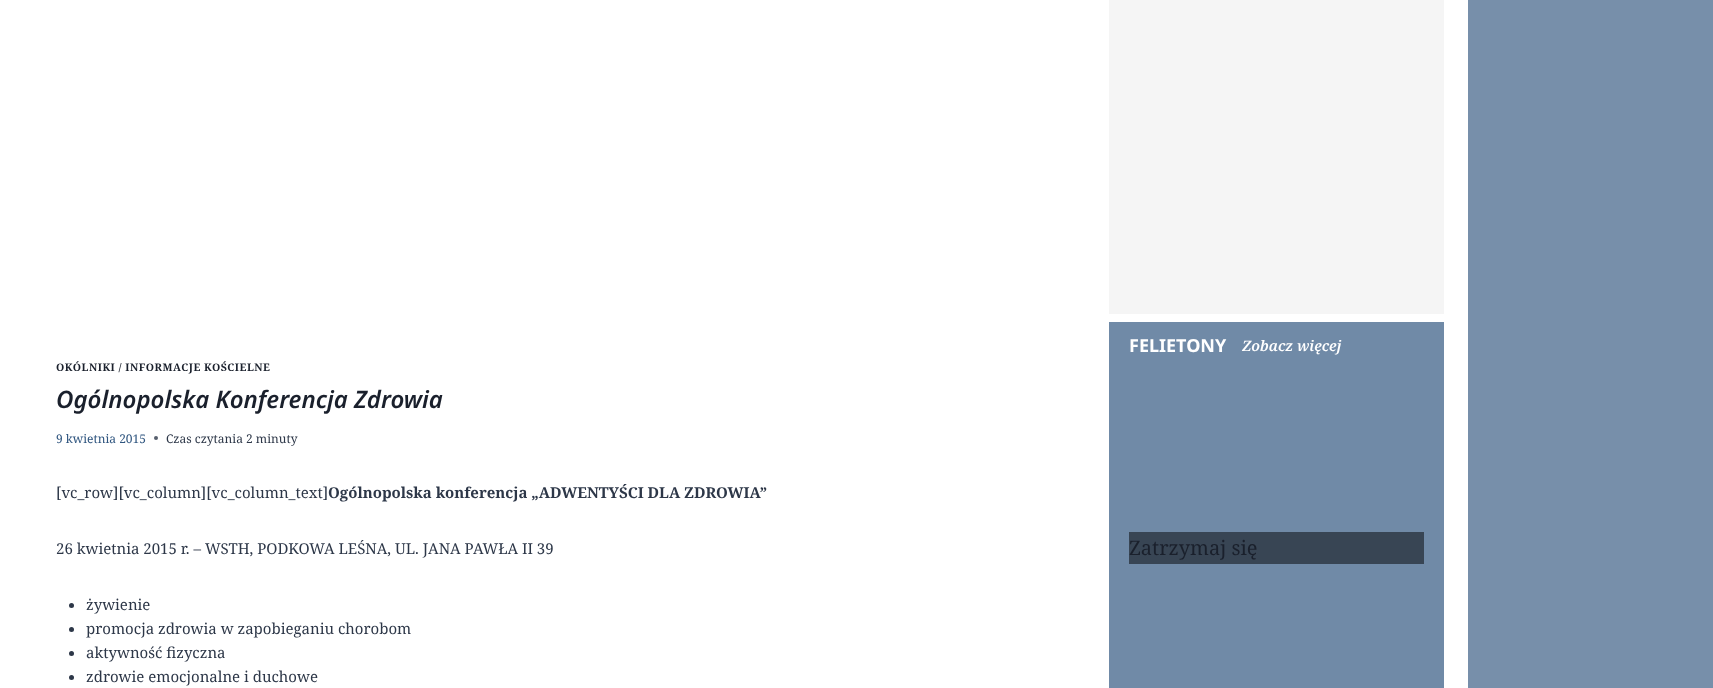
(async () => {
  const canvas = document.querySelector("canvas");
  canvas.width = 1713;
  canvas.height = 688;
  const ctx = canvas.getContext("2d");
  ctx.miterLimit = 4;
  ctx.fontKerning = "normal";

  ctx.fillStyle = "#ffffff";
  ctx.fillRect(0, 0, 1713, 688);
  ctx.fillStyle = "#575f6d";
  ctx.beginPath();
  ctx.arc(156, 438, 2, 0, Math.PI * 2);
  ctx.fill();
  ctx.fillStyle = "#2d3748";
  ctx.beginPath();
  ctx.arc(71.5, 605.5, 2.5, 0, Math.PI * 2);
  ctx.fill();
  ctx.beginPath();
  ctx.arc(71.5, 629.5, 2.5, 0, Math.PI * 2);
  ctx.fill();
  ctx.beginPath();
  ctx.arc(71.5, 653.5, 2.5, 0, Math.PI * 2);
  ctx.fill();
  ctx.beginPath();
  ctx.arc(71.5, 677.5, 2.5, 0, Math.PI * 2);
  ctx.fill();
  for (const [x, y, w, h, color] of [
    [1109, 0, 335, 314, "#f5f5f5"],
    [1109, 322, 335, 366, "#708aa7"],
    [1129, 532, 295, 32, "#384554"],
    [1468, 0, 245, 688, "#778faa"],
  ]) {
    ctx.fillStyle = color;
    ctx.fillRect(x, y, w, h);
  }
  ctx.letterSpacing = "0.5px";
  ctx.font = "bold 10.5px Noto Serif";
  ctx.fillStyle = "#1a202c";
  ctx.fillText("OKÓLNIKI / INFORMACJE KOŚCIELNE", 56, 371);
  ctx.letterSpacing = "0px";
  ctx.font = "italic 600 24px Noto Sans";
  ctx.fillText("Ogólnopolska Konferencja Zdrowia", 56, 408);
  ctx.font = "12px Noto Serif";
  ctx.fillStyle = "#2f557f";
  ctx.fillText("9 kwietnia 2015", 56, 443);
  ctx.fillStyle = "#2d3748";
  ctx.fillText("Czas czytania 2 minuty", 166, 443);
  ctx.font = "15px Noto Serif";
  ctx.fillText("[vc_row][vc_column][vc_column_text]", 56, 498);
  ctx.font = "bold 15px Noto Serif";
  ctx.fillText("Ogólnopolska konferencja „ADWENTYŚCI DLA ZDROWIA”", 328, 498);
  ctx.font = "15px Noto Serif";
  for (const [text, x, y] of [
    ["26 kwietnia 2015 r. – WSTH, PODKOWA LEŚNA, UL. JANA PAWŁA II 39", 56, 554],
    ["żywienie", 86, 610],
    ["promocja zdrowia w zapobieganiu chorobom", 86, 634],
    ["aktywność fizyczna", 86, 658],
    ["zdrowie emocjonalne i duchowe", 86, 682],
  ]) {
    ctx.fillText(text, x, y);
  }
  ctx.font = "bold 18px Noto Sans";
  ctx.fillStyle = "#ffffff";
  ctx.fillText("FELIETONY", 1129, 352);
  ctx.font = "italic 600 14.5px Noto Serif";
  ctx.fillText("Zobacz więcej", 1242, 351);
  ctx.font = "20px Noto Serif";
  ctx.fillStyle = "#1a202c";
  ctx.fillText("Zatrzymaj się", 1129, 555);
})();
